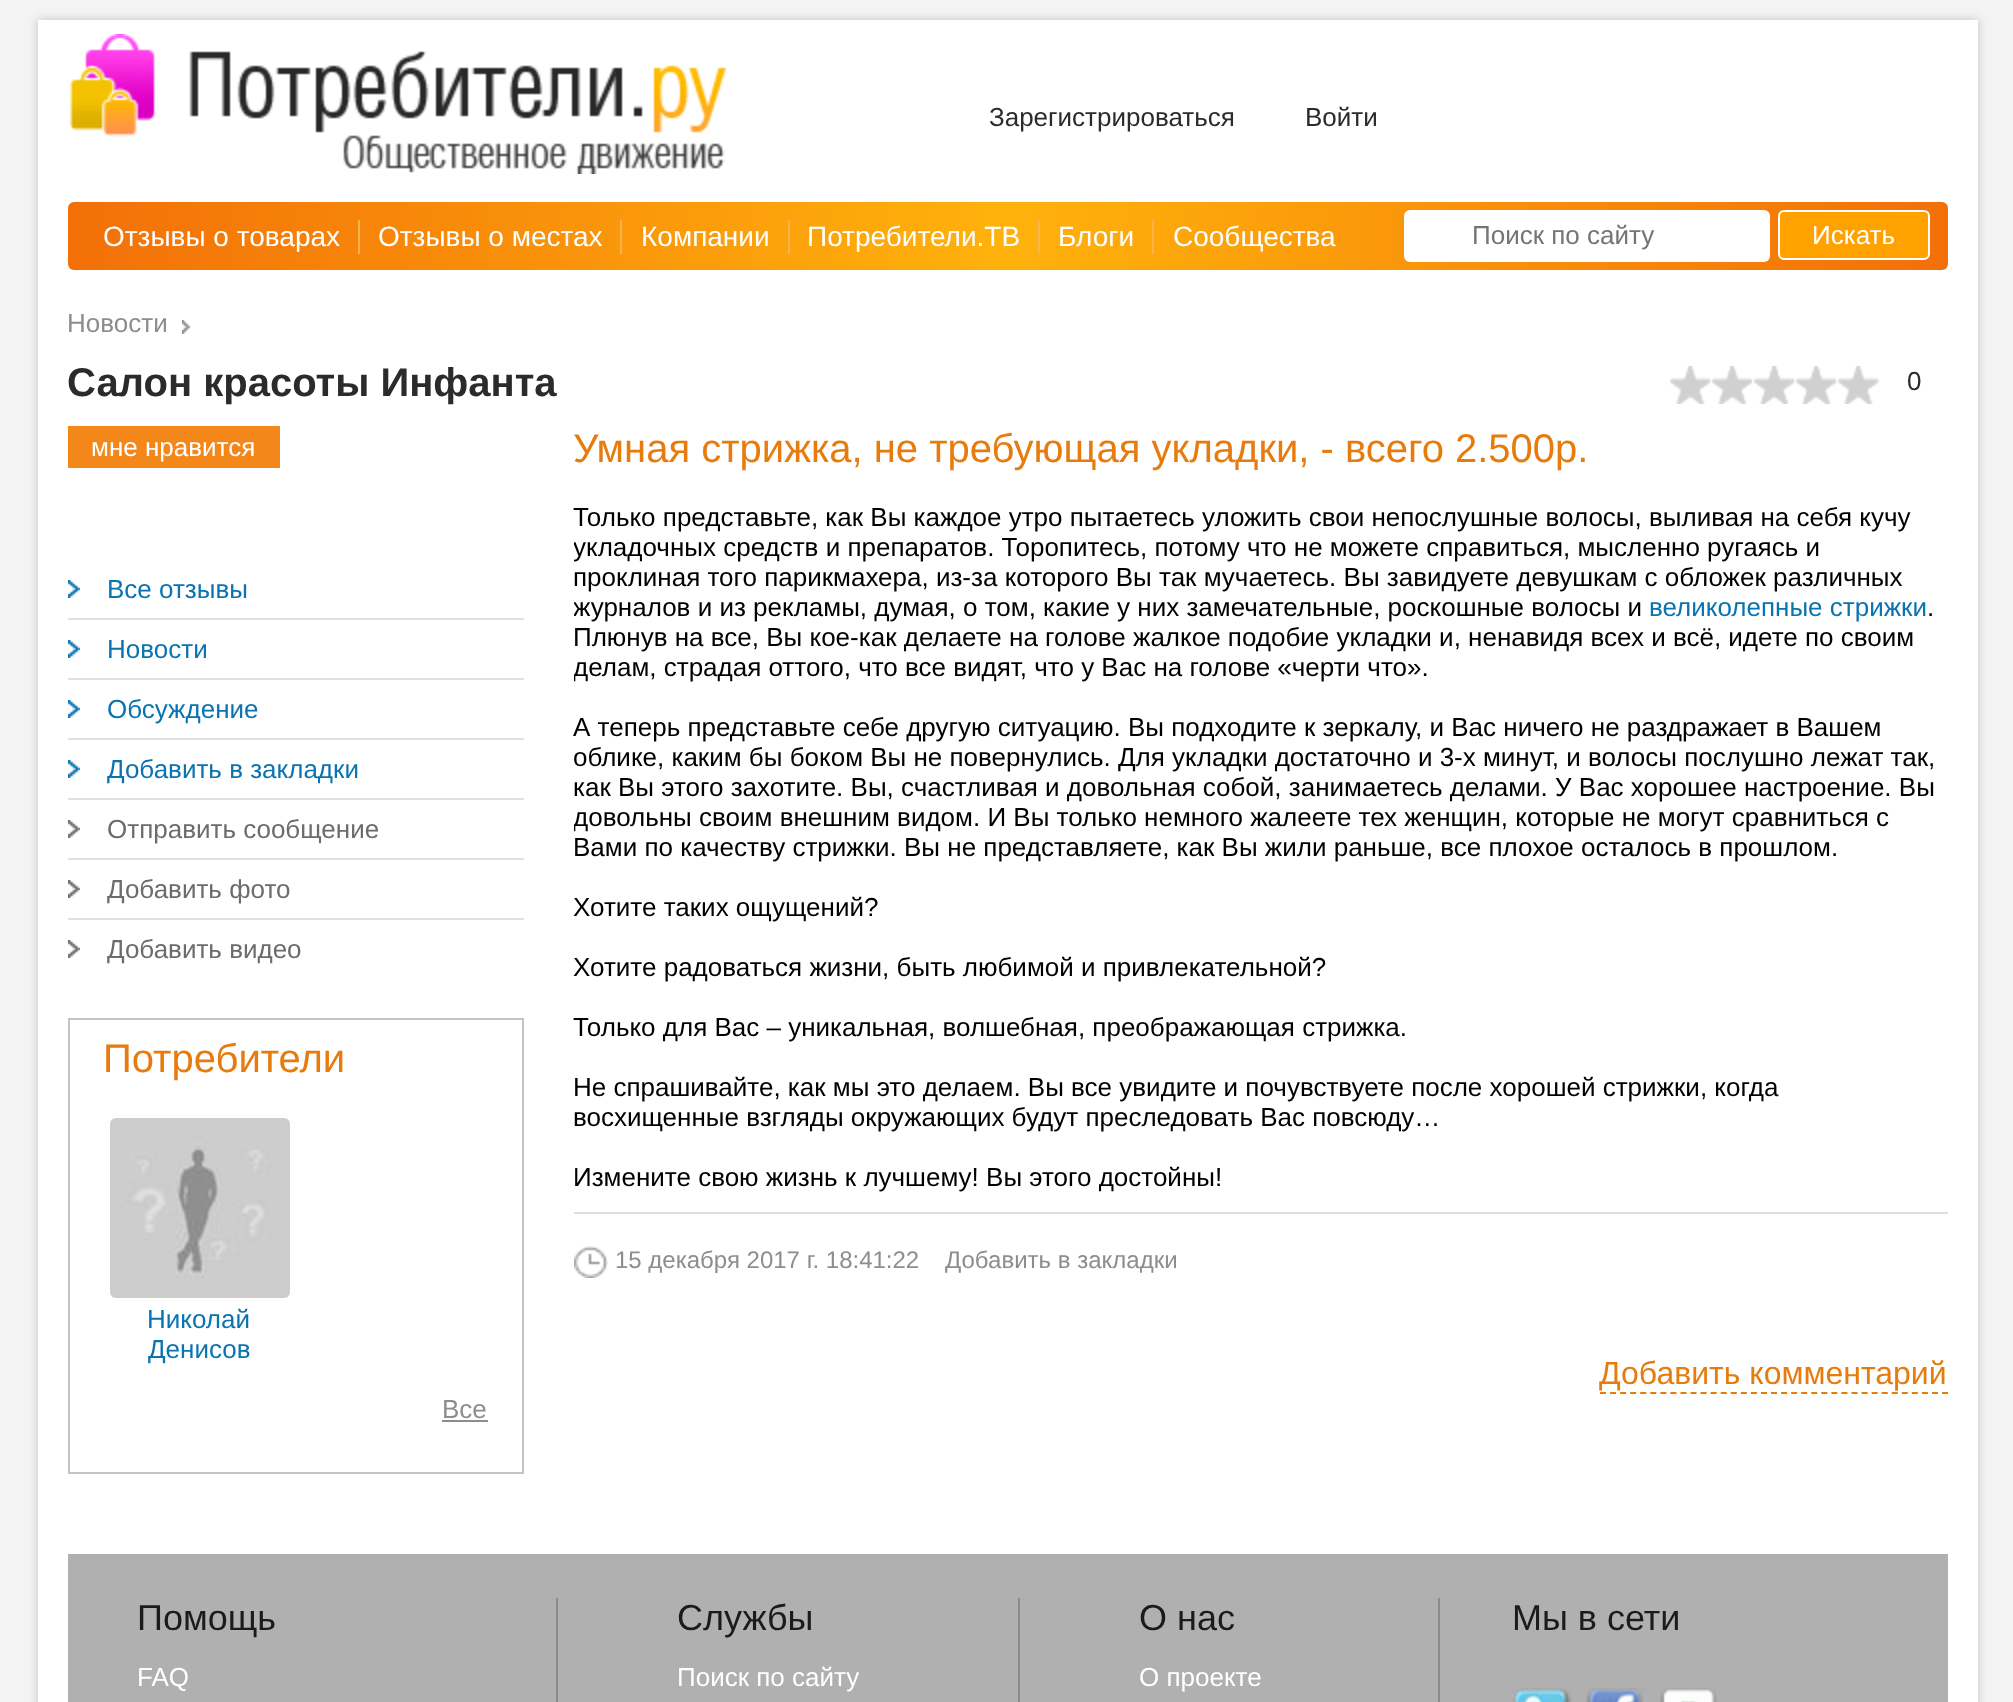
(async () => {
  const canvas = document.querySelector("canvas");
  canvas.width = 2013;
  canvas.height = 1702;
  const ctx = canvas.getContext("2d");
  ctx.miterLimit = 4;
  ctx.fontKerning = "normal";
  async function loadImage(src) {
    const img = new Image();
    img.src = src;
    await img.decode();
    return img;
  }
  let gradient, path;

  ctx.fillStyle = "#f3f3f4";
  ctx.fillRect(0, 0, 2013, 1702);
  ctx.fillStyle = "rgba(0, 0, 0, 0.2)";
  ctx.filter = "blur(5px)";
  ctx.beginPath();
  ctx.rect(38, 20, 1940, 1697);
  ctx.fill();
  ctx.filter = "none";
  ctx.fillStyle = "#ffffff";
  ctx.fillRect(38, 20, 1940, 1682);
  ctx.drawImage(await loadImage("img/1.png"), 69, 34, 657, 140);
  gradient = ctx.createLinearGradient(68, 236, 1948, 236);
  gradient.addColorStop(0, "#f37008");
  gradient.addColorStop(0.5, "#ffb20c");
  gradient.addColorStop(1, "#f37008");
  ctx.fillStyle = gradient;
  ctx.beginPath();
  ctx.roundRect(68, 202, 1880, 68, 6);
  ctx.fill();
  for (const [x, y, w, h, color] of [
    [358, 220, 2, 34, "#fbb251"],
    [620, 220, 2, 34, "#fbb251"],
    [788, 220, 2, 34, "#fbb251"],
    [1038, 220, 2, 34, "#fbb251"],
    [1152, 220, 2, 34, "#fbb251"],
  ]) {
    ctx.fillStyle = color;
    ctx.fillRect(x, y, w, h);
  }
  ctx.fillStyle = "#ffffff";
  ctx.beginPath();
  ctx.roundRect(1404, 210, 366, 52, 6);
  ctx.fill();
  ctx.fillStyle = "#ffa200";
  ctx.beginPath();
  ctx.roundRect(1779, 211, 150, 48, 5);
  ctx.fill();
  ctx.strokeStyle = "#ffffff";
  ctx.lineWidth = 2;
  ctx.stroke();
  ctx.drawImage(await loadImage("img/2.png"), 182, 320, 8, 14);
  ctx.drawImage(await loadImage("img/3.png"), 1670, 366, 210, 38);
  ctx.fillStyle = "#f48719";
  ctx.fillRect(68, 426, 212, 42);
  ctx.drawImage(await loadImage("img/4.png"), 68, 580, 12, 18);
  ctx.drawImage(await loadImage("img/4.png"), 68, 640, 12, 18);
  ctx.fillStyle = "#e1e1e1";
  ctx.fillRect(68, 618, 456, 2);
  ctx.drawImage(await loadImage("img/4.png"), 68, 700, 12, 18);
  ctx.fillRect(68, 678, 456, 2);
  ctx.drawImage(await loadImage("img/4.png"), 68, 760, 12, 18);
  ctx.fillRect(68, 738, 456, 2);
  ctx.drawImage(await loadImage("img/5.png"), 68, 820, 12, 18);
  ctx.fillRect(68, 798, 456, 2);
  ctx.drawImage(await loadImage("img/5.png"), 68, 880, 12, 18);
  ctx.fillRect(68, 858, 456, 2);
  ctx.drawImage(await loadImage("img/5.png"), 68, 940, 12, 18);
  ctx.fillRect(68, 918, 456, 2);
  ctx.strokeStyle = "#c4c4c4";
  ctx.strokeRect(69, 1019, 454, 454);
  ctx.drawImage(await loadImage("img/6.png"), 110, 1118, 180, 180);
  ctx.fillStyle = "#8d8d8d";
  ctx.fillRect(442, 1420, 46, 2);
  ctx.fillStyle = "#e0e0e0";
  ctx.fillRect(574, 1212, 1374, 2);
  ctx.drawImage(await loadImage("img/7.png"), 574, 1246, 34, 32);
  path = new Path2D("M1600 1393H1948");
  ctx.strokeStyle = "#e87b0d";
  ctx.setLineDash([6, 4.06]);
  ctx.stroke(path);
  for (const [x, y, w, h, color] of [
    [68, 1554, 1880, 148, "#b0b0b0"],
    [556, 1598, 2, 104, "#8b8b8b"],
    [1018, 1598, 2, 104, "#8b8b8b"],
    [1438, 1598, 2, 104, "#8b8b8b"],
  ]) {
    ctx.fillStyle = color;
    ctx.fillRect(x, y, w, h);
  }
  ctx.drawImage(await loadImage("img/8.png"), 1512, 1688, 60, 14);
  ctx.drawImage(await loadImage("img/9.png"), 1586, 1688, 60, 14);
  ctx.drawImage(await loadImage("img/10.png"), 1660, 1688, 57, 14);
  ctx.font = "26px Liberation Sans";
  ctx.fillStyle = "#2b2b2b";
  ctx.fillText("Зарегистрироваться", 989, 126);
  ctx.fillText("Войти", 1305, 126);
  ctx.font = "28px Liberation Sans";
  ctx.fillStyle = "#ffffff";
  for (const [text, x, y] of [
    ["Отзывы о товарах", 103, 246],
    ["Отзывы о местах", 378, 246],
    ["Компании", 641, 246],
    ["Потребители.ТВ", 807, 246],
    ["Блоги", 1058, 246],
    ["Сообщества", 1173, 246],
  ]) {
    ctx.fillText(text, x, y);
  }
  ctx.font = "26px Liberation Sans";
  ctx.fillStyle = "#757575";
  ctx.fillText("Поиск по сайту", 1472, 244);
  ctx.fillStyle = "#ffffff";
  ctx.fillText("Искать", 1812, 244);
  ctx.fillStyle = "#8d8d8d";
  ctx.fillText("Новости", 67, 332);
  ctx.font = "bold 40px Liberation Sans";
  ctx.fillStyle = "#2b2b2b";
  ctx.fillText("Салон красоты Инфанта", 67, 396);
  ctx.font = "26px Liberation Sans";
  ctx.fillText("0", 1907, 390);
  ctx.fillStyle = "#ffffff";
  ctx.fillText("мне нравится", 91, 456);
  ctx.fillStyle = "#0a73b1";
  for (const [text, x, y] of [
    ["Все отзывы", 107, 598],
    ["Новости", 107, 658],
    ["Обсуждение", 107, 718],
    ["Добавить в закладки", 107, 778],
  ]) {
    ctx.fillText(text, x, y);
  }
  ctx.fillStyle = "#6c6c6c";
  for (const [text, x, y] of [
    ["Отправить сообщение", 107, 838],
    ["Добавить фото", 107, 898],
    ["Добавить видео", 107, 958],
  ]) {
    ctx.fillText(text, x, y);
  }
  ctx.font = "40px Liberation Sans";
  ctx.fillStyle = "#e77b0e";
  ctx.fillText("Потребители", 103, 1072);
  ctx.font = "26px Liberation Sans";
  ctx.fillStyle = "#0a73b1";
  ctx.fillText("Николай", 147, 1328);
  ctx.fillText("Денисов", 148, 1358);
  ctx.fillStyle = "#8d8d8d";
  ctx.fillText("Все", 442, 1418);
  ctx.font = "40px Liberation Sans";
  ctx.fillStyle = "#e77b0e";
  ctx.fillText("Умная стрижка, не требующая укладки, - всего 2.500р.", 573, 462);
  ctx.font = "26px Liberation Sans";
  ctx.fillStyle = "#000000";
  ctx.fillText("Только представьте, как Вы каждое утро пытаетесь уложить свои непослушные волосы, выливая на себя кучу", 573, 526);
  ctx.save();
  ctx.beginPath();
  ctx.rect(574, 502, 1374, 690);
  ctx.clip();
  ctx.fillText("укладочных средств и препаратов. Торопитесь, потому что не можете справиться, мысленно ругаясь и", 573, 556);
  ctx.restore();
  ctx.fillText("проклиная того парикмахера, из-за которого Вы так мучаетесь. Вы завидуете девушкам с обложек различных", 573, 586);
  ctx.save();
  ctx.beginPath();
  ctx.rect(574, 502, 1374, 690);
  ctx.clip();
  ctx.fillText("журналов и из рекламы, думая, о том, какие у них замечательные, роскошные волосы и", 573, 616);
  ctx.restore();
  ctx.fillStyle = "#0a73b1";
  ctx.fillText("великолепные стрижки", 1649, 616);
  ctx.fillStyle = "#000000";
  ctx.fillText(".", 1927, 616);
  ctx.fillText("Плюнув на все, Вы кое-как делаете на голове жалкое подобие укладки и, ненавидя всех и всё, идете по своим", 573, 646);
  ctx.save();
  ctx.beginPath();
  ctx.rect(574, 502, 1374, 690);
  ctx.clip();
  ctx.fillText("делам, страдая оттого, что все видят, что у Вас на голове «черти что».", 573, 676);
  ctx.restore();
  for (const [text, x, y] of [
    ["А теперь представьте себе другую ситуацию. Вы подходите к зеркалу, и Вас ничего не раздражает в Вашем", 573, 736],
    ["облике, каким бы боком Вы не повернулись. Для укладки достаточно и 3-х минут, и волосы послушно лежат так,", 573, 766],
    ["как Вы этого захотите. Вы, счастливая и довольная собой, занимаетесь делами. У Вас хорошее настроение. Вы", 573, 796],
  ]) {
    ctx.fillText(text, x, y);
  }
  ctx.save();
  ctx.beginPath();
  ctx.rect(574, 502, 1374, 690);
  ctx.clip();
  ctx.fillText("довольны своим внешним видом. И Вы только немного жалеете тех женщин, которые не могут сравниться с", 573, 826);
  ctx.restore();
  for (const [text, x, y] of [
    ["Вами по качеству стрижки. Вы не представляете, как Вы жили раньше, все плохое осталось в прошлом.", 573, 856],
    ["Хотите таких ощущений?", 573, 916],
    ["Хотите радоваться жизни, быть любимой и привлекательной?", 573, 976],
    ["Только для Вас – уникальная, волшебная, преображающая стрижка.", 573, 1036],
    ["Не спрашивайте, как мы это делаем. Вы все увидите и почувствуете после хорошей стрижки, когда", 573, 1096],
    ["восхищенные взгляды окружающих будут преследовать Вас повсюду…", 573, 1126],
    ["Измените свою жизнь к лучшему! Вы этого достойны!", 573, 1186],
  ]) {
    ctx.fillText(text, x, y);
  }
  ctx.font = "24px Liberation Sans";
  ctx.fillStyle = "#8d8d8d";
  ctx.fillText("15 декабря 2017 г. 18:41:22", 615, 1268);
  ctx.fillText("Добавить в закладки", 945, 1268);
  ctx.font = "32px Liberation Sans";
  ctx.fillStyle = "#e77b0e";
  ctx.fillText("Добавить комментарий", 1599, 1384);
  ctx.font = "36px Liberation Sans";
  ctx.fillStyle = "#1b1b1b";
  ctx.fillText("Помощь", 137, 1630);
  ctx.font = "26px Liberation Sans";
  ctx.fillStyle = "#ffffff";
  ctx.fillText("FAQ", 137, 1686);
  ctx.font = "36px Liberation Sans";
  ctx.fillStyle = "#1b1b1b";
  ctx.fillText("Службы", 677, 1630);
  ctx.font = "26px Liberation Sans";
  ctx.fillStyle = "#ffffff";
  ctx.fillText("Поиск по сайту", 677, 1686);
  ctx.font = "36px Liberation Sans";
  ctx.fillStyle = "#1b1b1b";
  ctx.fillText("О нас", 1139, 1630);
  ctx.font = "26px Liberation Sans";
  ctx.fillStyle = "#ffffff";
  ctx.fillText("О проекте", 1139, 1686);
  ctx.font = "36px Liberation Sans";
  ctx.fillStyle = "#1b1b1b";
  ctx.fillText("Мы в сети", 1512, 1630);
})();
